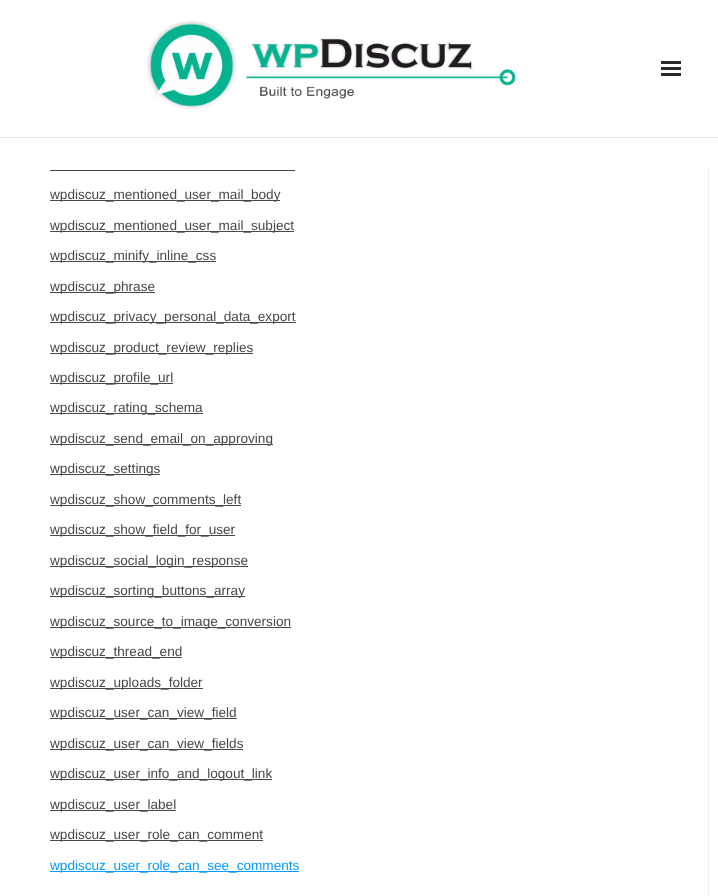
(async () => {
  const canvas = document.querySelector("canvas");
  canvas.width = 718;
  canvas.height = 896;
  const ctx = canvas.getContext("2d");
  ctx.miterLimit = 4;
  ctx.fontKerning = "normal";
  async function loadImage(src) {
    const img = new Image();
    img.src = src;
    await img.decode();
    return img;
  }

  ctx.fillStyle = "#ffffff";
  ctx.fillRect(0, 0, 718, 896);
  ctx.fillStyle = "#e5e5e5";
  ctx.fillRect(0, 137, 718, 1);
  ctx.drawImage(await loadImage("img/1.png"), 147, 21, 369, 88);
  for (const [x, y, w, h, color] of [
    [661, 61, 20, 3, "#292929"],
    [661, 67, 20, 3, "#292929"],
    [661, 73, 20, 3, "#292929"],
    [708, 168, 1, 728, "#eeeeee"],
    [50, 170, 245, 1, "#47484a"],
    [50, 200, 230, 1, "#47484a"],
    [50, 231, 244, 1, "#47484a"],
    [50, 261, 166, 1, "#47484a"],
    [50, 292, 105, 1, "#47484a"],
    [50, 322, 246, 1, "#47484a"],
    [50, 353, 203, 1, "#47484a"],
    [50, 383, 123, 1, "#47484a"],
    [50, 413, 153, 1, "#47484a"],
    [50, 444, 223, 1, "#47484a"],
    [50, 474, 110, 1, "#47484a"],
    [50, 505, 191, 1, "#47484a"],
    [50, 535, 185, 1, "#47484a"],
    [50, 566, 198, 1, "#47484a"],
    [50, 596, 195, 1, "#47484a"],
    [50, 627, 241, 1, "#47484a"],
    [50, 657, 132, 1, "#47484a"],
    [50, 688, 153, 1, "#47484a"],
    [50, 718, 187, 1, "#47484a"],
    [50, 749, 193, 1, "#47484a"],
    [50, 779, 222, 1, "#47484a"],
    [50, 810, 126, 1, "#47484a"],
    [50, 840, 213, 1, "#47484a"],
    [50, 871, 249, 1, "#069dfd"],
  ]) {
    ctx.fillStyle = color;
    ctx.fillRect(x, y, w, h);
  }
  ctx.font = "13.6px Liberation Sans";
  ctx.fillStyle = "#47484a";
  for (const [text, x, y] of [
    ["wpdiscuz_mentioned_user_mail_body", 50, 199],
    ["wpdiscuz_mentioned_user_mail_subject", 50, 230],
    ["wpdiscuz_minify_inline_css", 50, 260],
    ["wpdiscuz_phrase", 50, 291],
    ["wpdiscuz_privacy_personal_data_export", 50, 321],
    ["wpdiscuz_product_review_replies", 50, 352],
    ["wpdiscuz_profile_url", 50, 382],
    ["wpdiscuz_rating_schema", 50, 412],
    ["wpdiscuz_send_email_on_approving", 50, 443],
    ["wpdiscuz_settings", 50, 473],
    ["wpdiscuz_show_comments_left", 50, 504],
    ["wpdiscuz_show_field_for_user", 50, 534],
    ["wpdiscuz_social_login_response", 50, 565],
    ["wpdiscuz_sorting_buttons_array", 50, 595],
    ["wpdiscuz_source_to_image_conversion", 50, 626],
    ["wpdiscuz_thread_end", 50, 656],
    ["wpdiscuz_uploads_folder", 50, 687],
    ["wpdiscuz_user_can_view_field", 50, 717],
    ["wpdiscuz_user_can_view_fields", 50, 748],
    ["wpdiscuz_user_info_and_logout_link", 50, 778],
    ["wpdiscuz_user_label", 50, 809],
    ["wpdiscuz_user_role_can_comment", 50, 839],
  ]) {
    ctx.fillText(text, x, y);
  }
  ctx.fillStyle = "#069dfd";
  ctx.fillText("wpdiscuz_user_role_can_see_comments", 50, 870);
})();
